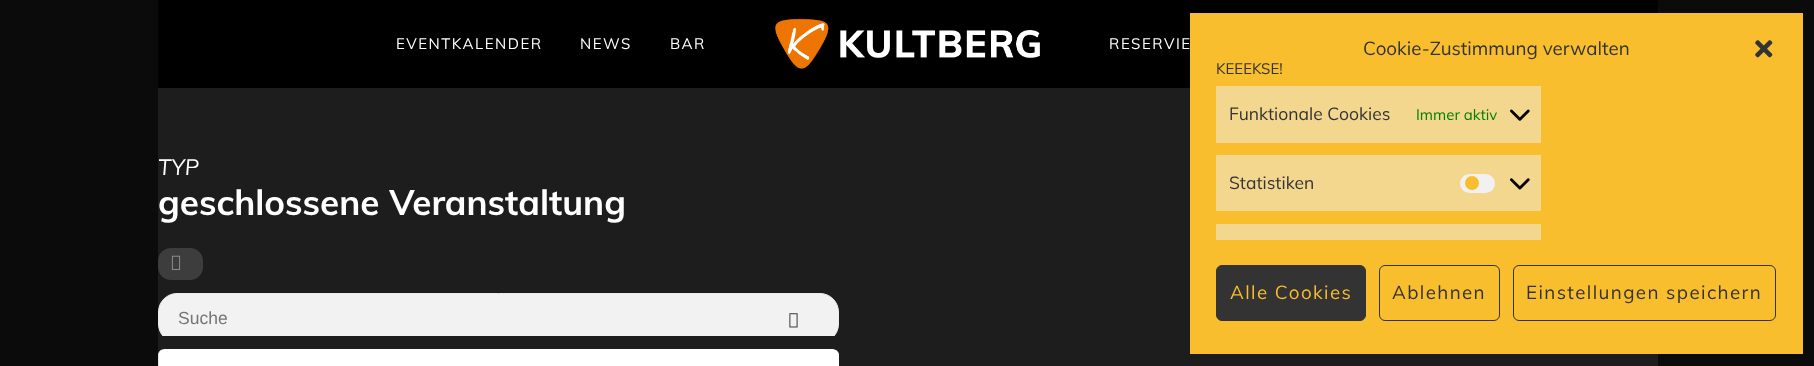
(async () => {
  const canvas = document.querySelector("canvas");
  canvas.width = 1814;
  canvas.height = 366;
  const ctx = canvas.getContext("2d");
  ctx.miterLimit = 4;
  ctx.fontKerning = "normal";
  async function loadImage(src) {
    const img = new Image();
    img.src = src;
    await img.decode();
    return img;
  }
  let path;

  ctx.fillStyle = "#0b0b0b";
  ctx.fillRect(0, 0, 1814, 366);
  ctx.fillStyle = "#1d1d1d";
  ctx.fillRect(158, 88, 1500, 278);
  ctx.fillStyle = "#000000";
  ctx.fillRect(158, 0, 1500, 88);
  ctx.drawImage(await loadImage("img/1.png"), 775, 18, 265, 51);
  ctx.fillStyle = "#3d3d3d";
  ctx.beginPath();
  ctx.roundRect(158, 248, 45, 32, 13);
  ctx.fill();
  ctx.drawImage(await loadImage("img/2.png"), 171, 255, 10, 15);
  ctx.save();
  ctx.beginPath();
  ctx.rect(158, 293, 681, 43);
  ctx.clip();
  ctx.fillStyle = "#f2f2f2";
  ctx.beginPath();
  ctx.roundRect(158.5, 293.5, 680, 49, 18.5);
  ctx.fill();
  ctx.strokeStyle = "#ededed";
  ctx.stroke();
  ctx.restore();
  ctx.drawImage(await loadImage("img/3.png"), 789, 313, 9, 15);
  ctx.fillStyle = "#e5e5e5";
  path = new Path2D("M164 349C161 349 158 352 158 355V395C158 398 161 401 164 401H832C836 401 839 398 839 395C839 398 836 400 832 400H164C161 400 159 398 159 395V355C159 352 161 349 164 349Z");
  ctx.fill(path);
  ctx.fillStyle = "#ffffff";
  path = new Path2D("M164 349H833L836 350C838 351 839 353 839 355V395C839 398 836 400 832 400H164C162 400 160 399 159 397V353C159 352 160 351 161 350Z");
  ctx.fill(path);
  ctx.fillStyle = "#f8be2e";
  ctx.fillRect(1190, 13, 613, 341);
  ctx.drawImage(await loadImage("img/4.png"), 1755, 40, 18, 18);
  ctx.fillStyle = "#f4d78f";
  ctx.fillRect(1216, 86, 325, 57);
  ctx.drawImage(await loadImage("img/5.png"), 1510, 109, 20, 12);
  ctx.fillRect(1216, 155, 325, 56);
  ctx.fillStyle = "#f1f1f1";
  ctx.beginPath();
  ctx.roundRect(1460, 174, 35, 19, 9.5);
  ctx.fill();
  ctx.fillStyle = "#f8be2e";
  ctx.beginPath();
  ctx.arc(1472, 183, 7, 0, Math.PI * 2);
  ctx.fill();
  ctx.drawImage(await loadImage("img/6.png"), 1510, 178, 20, 12);
  ctx.fillStyle = "#f4d78f";
  ctx.fillRect(1216, 224, 325, 16);
  ctx.beginPath();
  ctx.roundRect(1473, 239, 25, 1, [2.5, 2.5, 0, 0]);
  ctx.fill();
  ctx.fillStyle = "#333333";
  ctx.beginPath();
  ctx.roundRect(1216.5, 265.5, 149, 55, 5.5);
  ctx.fill();
  ctx.strokeStyle = "#333333";
  ctx.stroke();
  ctx.beginPath();
  ctx.roundRect(1379.5, 265.5, 120, 55, 5.5);
  ctx.stroke();
  ctx.beginPath();
  ctx.roundRect(1513.5, 265.5, 262, 55, 5.5);
  ctx.stroke();
  ctx.letterSpacing = "1.5px";
  ctx.font = "15px Muli";
  ctx.fillStyle = "#ffffff";
  for (const [text, x, y] of [
    ["EVENTKALENDER", 396, 49],
    ["NEWS", 580, 49],
    ["BAR", 670, 49],
    ["RESERVIE", 1109, 49],
  ]) {
    ctx.fillText(text, x, y);
  }
  ctx.letterSpacing = "0px";
  ctx.font = "italic 22px Muli";
  ctx.fillText("TYP", 158, 175);
  ctx.font = "bold 35px Muli";
  ctx.fillText("geschlossene Veranstaltung", 158, 215);
  ctx.font = "17.5px Liberation Sans";
  ctx.fillStyle = "#757575";
  ctx.fillText("Suche", 178, 324);
  ctx.font = "18.75px Muli";
  ctx.fillStyle = "#333333";
  ctx.fillText("Cookie-Zustimmung verwalten", 1363, 55);
  ctx.font = "15px Muli";
  ctx.fillText("KEEEKSE!", 1216, 74);
  ctx.font = "17.5px Muli";
  ctx.fillText("Funktionale Cookies", 1229, 120);
  ctx.font = "15px Muli";
  ctx.fillStyle = "#008000";
  ctx.fillText("Immer aktiv", 1416, 120);
  ctx.font = "17.5px Muli";
  ctx.fillStyle = "#333333";
  ctx.fillText("Statistiken", 1229, 189);
  ctx.letterSpacing = "1.4px";
  ctx.font = "18.75px Muli";
  ctx.fillStyle = "#f8be2e";
  ctx.fillText("Alle Cookies", 1230, 299);
  ctx.fillStyle = "#333333";
  ctx.fillText("Ablehnen", 1392, 299);
  ctx.fillText("Einstellungen speichern", 1526, 299);
})();
